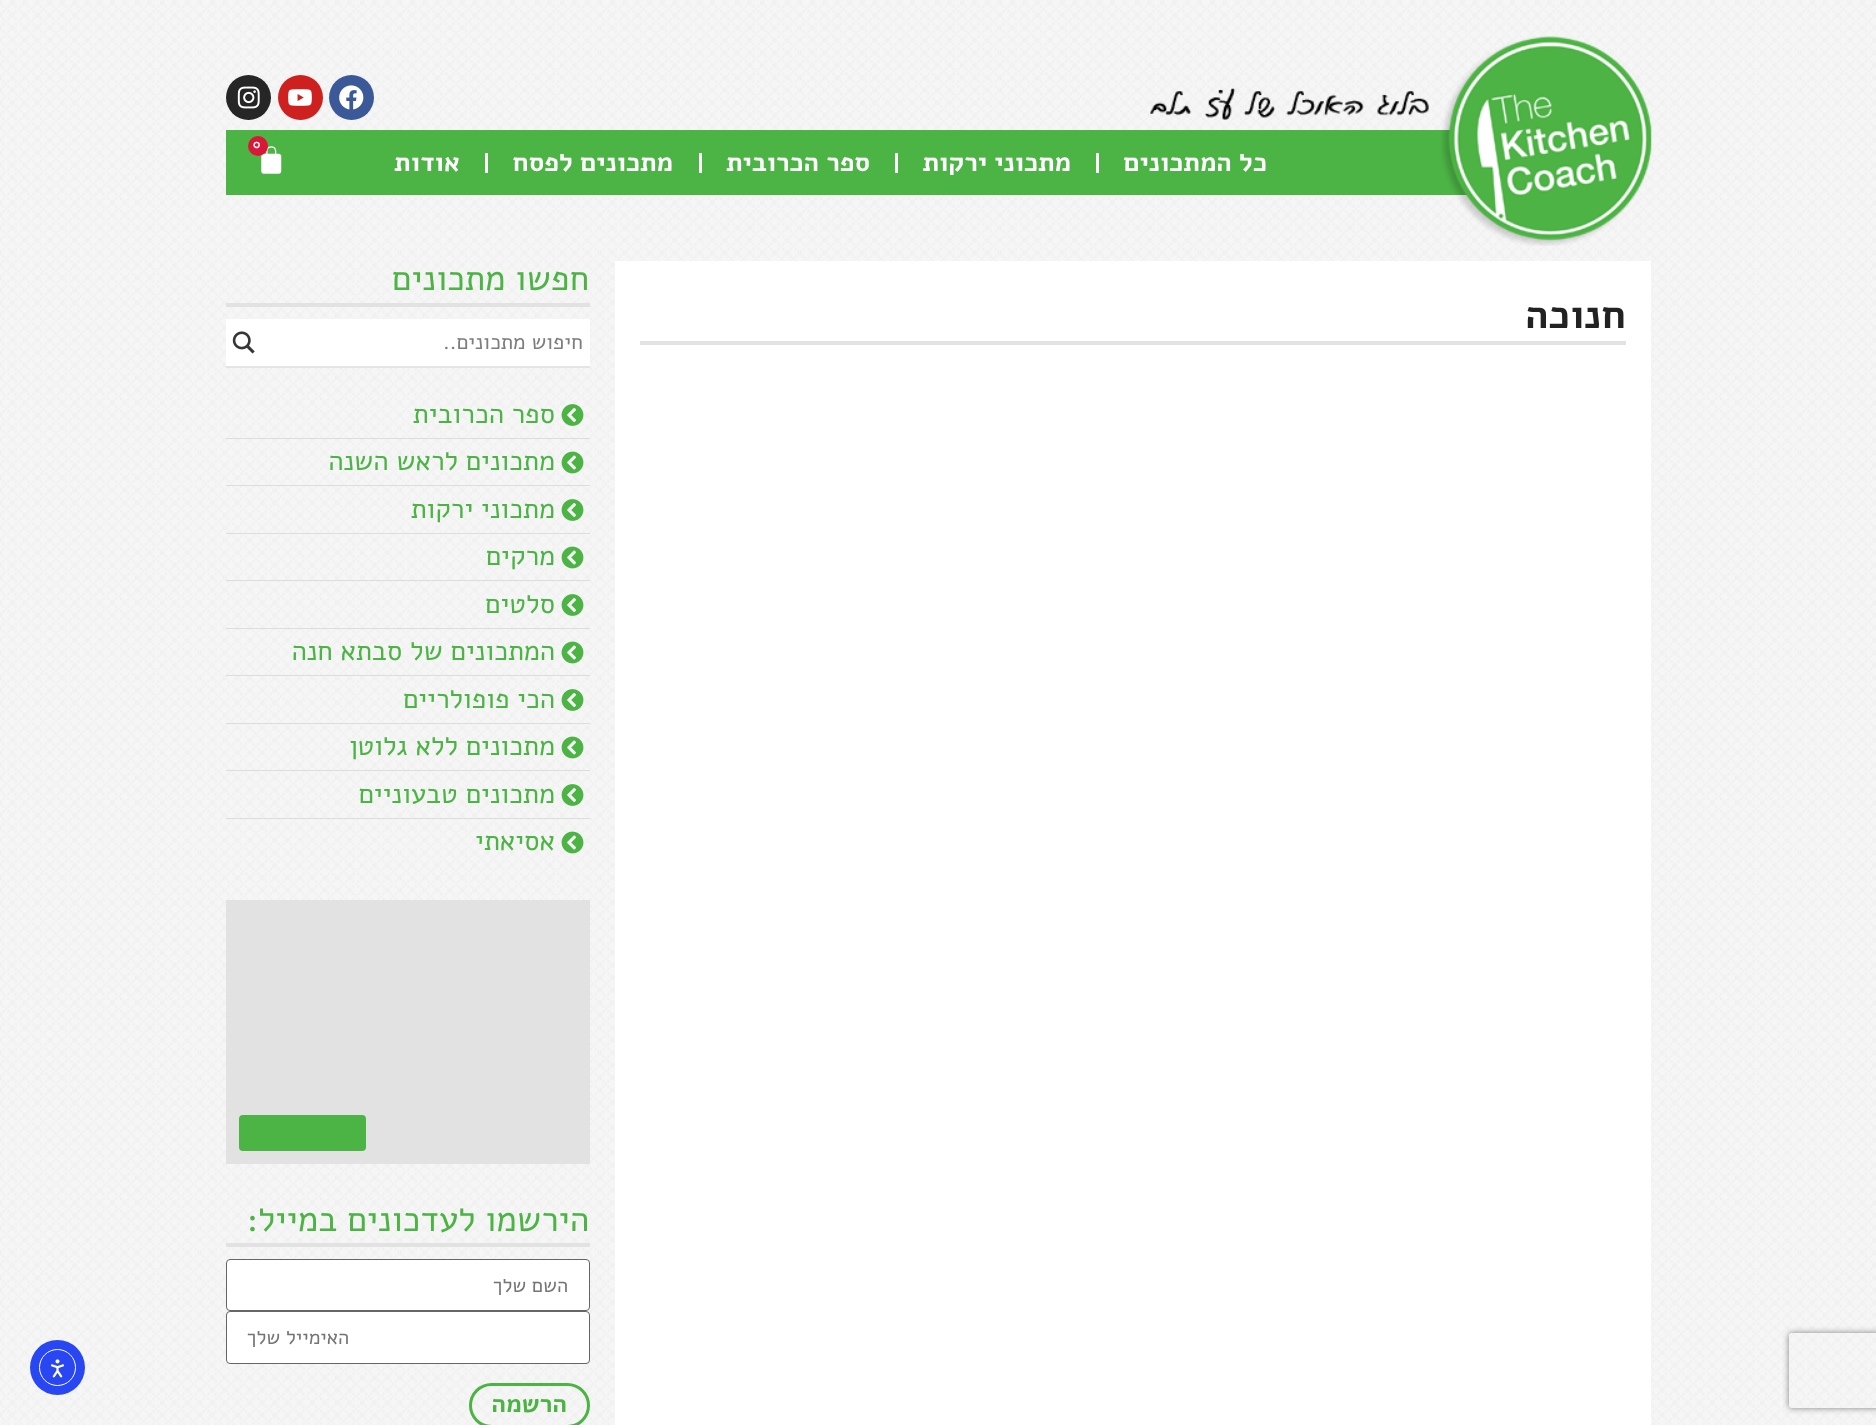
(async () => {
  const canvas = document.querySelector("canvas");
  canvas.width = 1876;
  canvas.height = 1425;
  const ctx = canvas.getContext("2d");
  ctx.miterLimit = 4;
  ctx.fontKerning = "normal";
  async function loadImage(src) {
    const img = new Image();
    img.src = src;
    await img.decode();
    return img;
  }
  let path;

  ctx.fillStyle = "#ffffff";
  ctx.fillRect(0, 0, 1876, 1425);
  ctx.drawImage(await loadImage("img/1.png"), 0, 0, 1876, 1425);
  ctx.fillStyle = "#4cb345";
  ctx.fillRect(226, 130, 1242, 65);
  ctx.drawImage(await loadImage("img/2.png"), 1441, 36, 211, 210);
  ctx.drawImage(await loadImage("img/3.png"), 1150, 88, 279, 32);
  ctx.fillStyle = "#3b5998";
  ctx.beginPath();
  ctx.arc(351.5, 97.5, 22.5, 0, Math.PI * 2);
  ctx.fill();
  ctx.drawImage(await loadImage("img/4.png"), 339, 85, 25, 25);
  ctx.fillStyle = "#cd201f";
  ctx.beginPath();
  ctx.arc(300.5, 97.5, 22.5, 0, Math.PI * 2);
  ctx.fill();
  ctx.drawImage(await loadImage("img/5.png"), 288, 89, 24, 17);
  ctx.fillStyle = "#262626";
  ctx.beginPath();
  ctx.arc(248.5, 97.5, 22.5, 0, Math.PI * 2);
  ctx.fill();
  ctx.drawImage(await loadImage("img/6.png"), 237, 86, 23, 23);
  ctx.drawImage(await loadImage("img/7.png"), 261, 146, 21, 28);
  ctx.fillStyle = "#db1638";
  ctx.beginPath();
  ctx.arc(258, 146, 10, 0, Math.PI * 2);
  ctx.fill();
  for (const [x, y, w, h, color] of [
    [1096, 153, 3, 20, "#ffffff"],
    [895, 153, 3, 20, "#ffffff"],
    [699, 153, 3, 20, "#ffffff"],
    [485, 153, 3, 20, "#ffffff"],
  ]) {
    ctx.fillStyle = color;
    ctx.fillRect(x, y, w, h);
  }
  ctx.save();
  path = new Path2D("M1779 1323H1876V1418H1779ZM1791.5 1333H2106.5C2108 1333 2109 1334 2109 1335.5V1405.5C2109 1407 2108 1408 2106.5 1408H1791.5C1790 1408 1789 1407 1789 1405.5V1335.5C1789 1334 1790 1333 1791.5 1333Z");
  ctx.clip(path, "evenodd");
  ctx.fillStyle = "#808080";
  ctx.filter = "blur(3px)";
  ctx.beginPath();
  ctx.roundRect(1789, 1333, 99, 75, 2.5);
  ctx.fill();
  ctx.filter = "none";
  ctx.restore();
  for (const [x, y, w, h, color] of [
    [615, 261, 1036, 1164, "#ffffff"],
    [640, 341, 986, 4, "#e2e2e2"],
    [226, 303, 364, 4, "#e2e2e2"],
  ]) {
    ctx.fillStyle = color;
    ctx.fillRect(x, y, w, h);
  }
  ctx.fillStyle = "#e4e4e4";
  path = new Path2D("M226 320V368H590V366H226Z");
  ctx.fill(path);
  ctx.fillStyle = "#ffffff";
  ctx.fillRect(226, 319, 364, 47);
  ctx.drawImage(await loadImage("img/8.png"), 232, 331, 23, 23);
  ctx.drawImage(await loadImage("img/9.png"), 561, 404, 23, 22);
  ctx.fillStyle = "#dddddd";
  ctx.fillRect(226, 438, 364, 1);
  ctx.drawImage(await loadImage("img/10.png"), 561, 451, 23, 23);
  ctx.fillRect(226, 485, 364, 1);
  ctx.drawImage(await loadImage("img/11.png"), 561, 499, 23, 22);
  ctx.fillRect(226, 533, 364, 1);
  ctx.drawImage(await loadImage("img/12.png"), 561, 546, 23, 23);
  ctx.fillRect(226, 580, 364, 1);
  ctx.drawImage(await loadImage("img/13.png"), 561, 594, 23, 22);
  ctx.fillRect(226, 628, 364, 1);
  ctx.drawImage(await loadImage("img/14.png"), 561, 641, 23, 23);
  ctx.fillRect(226, 675, 364, 1);
  ctx.drawImage(await loadImage("img/15.png"), 561, 689, 23, 22);
  ctx.fillRect(226, 723, 364, 1);
  ctx.drawImage(await loadImage("img/16.png"), 561, 736, 23, 23);
  ctx.fillRect(226, 770, 364, 1);
  ctx.drawImage(await loadImage("img/17.png"), 561, 784, 23, 22);
  ctx.fillRect(226, 818, 364, 1);
  ctx.drawImage(await loadImage("img/18.png"), 561, 831, 23, 23);
  ctx.fillStyle = "#e2e2e2";
  ctx.fillRect(226, 900, 364, 264);
  ctx.fillStyle = "#4cb345";
  ctx.beginPath();
  ctx.roundRect(239, 1115, 127, 36, 4);
  ctx.fill();
  ctx.fillStyle = "#e2e2e2";
  ctx.fillRect(226, 1243, 364, 4);
  ctx.fillStyle = "#ffffff";
  ctx.beginPath();
  ctx.roundRect(226.5, 1259.5, 363, 51, 3.5);
  ctx.fill();
  ctx.strokeStyle = "#666666";
  ctx.stroke();
  ctx.beginPath();
  ctx.roundRect(226.5, 1311.5, 363, 52, 3.5);
  ctx.fill();
  ctx.stroke();
  ctx.beginPath();
  ctx.roundRect(470.5, 1384.5, 118, 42, 21);
  ctx.strokeStyle = "#4db345";
  ctx.lineWidth = 3;
  ctx.stroke();
  ctx.fillStyle = "#2847f3";
  ctx.beginPath();
  ctx.arc(57.5, 1367.5, 27.5, 0, Math.PI * 2);
  ctx.fill();
  ctx.beginPath();
  ctx.arc(57.5, 1367.5, 18, 0, Math.PI * 2);
  ctx.strokeStyle = "#ffffff";
  ctx.lineWidth = 1;
  ctx.stroke();
  ctx.drawImage(await loadImage("img/19.png"), 50, 1359, 14, 19);
  ctx.font = "bold 12px Alef";
  ctx.fillStyle = "#ffffff";
  ctx.fillText("0", 253, 148);
  ctx.direction = "rtl";
  ctx.font = "bold 26.25px Alef";
  for (const [text, x, y] of [
    ["כל המתכונים", 1267, 171],
    ["מתכוני ירקות", 1071, 171],
    ["ספר הכרובית", 870, 171],
    ["מתכונים לפסח", 673, 171],
    ["אודות", 460, 171],
  ]) {
    ctx.fillText(text, x, y);
  }
  ctx.font = "bold 40px Alef";
  ctx.fillStyle = "#222222";
  ctx.fillText("חנוכה", 1626, 328);
  ctx.font = "35px Alef";
  ctx.fillStyle = "#4cb345";
  ctx.fillText("חפשו מתכונים", 589, 290);
  ctx.font = "21.25px Alef";
  ctx.fillStyle = "#7d7d7d";
  ctx.fillText("חיפוש מתכונים..", 583, 349);
  ctx.font = "27.5px Alef";
  ctx.fillStyle = "#4cb345";
  for (const [text, x, y] of [
    ["ספר הכרובית", 555, 423],
    ["מתכונים לראש השנה", 555, 470],
    ["מתכוני ירקות", 555, 518],
    ["מרקים", 555, 565],
    ["סלטים", 555, 613],
    ["המתכונים של סבתא חנה", 555, 660],
    ["הכי פופולריים", 555, 708],
    ["מתכונים ללא גלוטן", 555, 755],
    ["מתכונים טבעוניים", 555, 803],
    ["אסיאתי", 555, 850],
  ]) {
    ctx.fillText(text, x, y);
  }
  ctx.font = "35px Alef";
  ctx.fillText("הירשמו לעדכונים במייל:", 589, 1231);
  ctx.font = "20px Alef";
  ctx.fillStyle = "#757575";
  ctx.fillText("השם שלך", 568, 1292);
  ctx.fillText("האימייל שלך", 349, 1344);
  ctx.font = "bold 25px Alef";
  ctx.fillStyle = "#4cb345";
  ctx.fillText("הרשמה", 567, 1412);
})();
